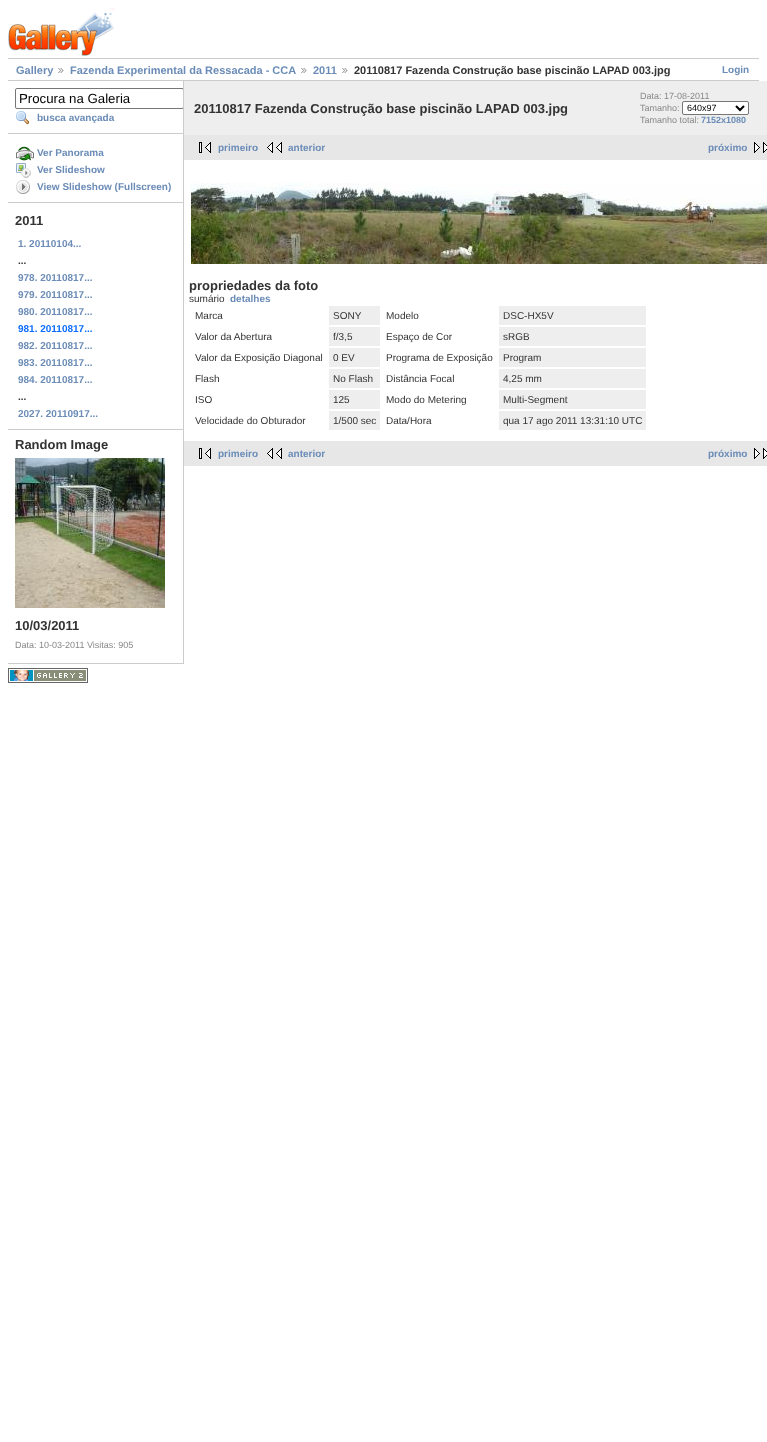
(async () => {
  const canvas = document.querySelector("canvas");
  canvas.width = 767;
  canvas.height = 1442;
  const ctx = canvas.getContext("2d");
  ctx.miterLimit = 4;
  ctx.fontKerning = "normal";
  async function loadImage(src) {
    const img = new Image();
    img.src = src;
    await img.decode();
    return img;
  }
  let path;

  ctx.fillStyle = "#ffffff";
  ctx.fillRect(0, 0, 767, 1442);
  ctx.drawImage(await loadImage("img/1.png"), 8, 8, 107, 48);
  ctx.fillStyle = "#cccccc";
  ctx.fillRect(8, 58, 751, 1);
  ctx.fillRect(8, 80, 751, 1);
  ctx.drawImage(await loadImage("img/2.png"), 58, 68, 6, 5);
  ctx.drawImage(await loadImage("img/2.png"), 301, 68, 6, 5);
  ctx.drawImage(await loadImage("img/2.png"), 342, 68, 6, 5);
  ctx.fillRect(183, 81, 1, 583);
  ctx.fillRect(8, 133, 175, 1);
  ctx.save();
  ctx.beginPath();
  ctx.rect(8, 81, 175, 583);
  ctx.clip();
  ctx.beginPath();
  ctx.roundRect(15.5, 88.5, 168, 20, 1.5);
  ctx.strokeStyle = "#767676";
  ctx.stroke();
  ctx.restore();
  ctx.drawImage(await loadImage("img/3.png"), 16, 111, 13, 14);
  ctx.fillRect(8, 202, 175, 1);
  ctx.drawImage(await loadImage("img/4.png"), 16, 146, 18, 15);
  ctx.drawImage(await loadImage("img/5.png"), 16, 163, 15, 15);
  ctx.drawImage(await loadImage("img/6.png"), 16, 180, 14, 14);
  ctx.fillRect(8, 429, 175, 1);
  ctx.fillRect(8, 663, 175, 1);
  ctx.drawImage(await loadImage("img/7.png"), 15, 458, 150, 150);
  ctx.fillStyle = "#eeeeee";
  ctx.fillRect(184, 81, 583, 54);
  ctx.fillStyle = "#ffffff";
  ctx.beginPath();
  ctx.roundRect(682.5, 101.5, 66, 13, 1.5);
  ctx.fill();
  ctx.strokeStyle = "#767676";
  ctx.stroke();
  path = new Path2D("M736 106L740 110L744 106");
  ctx.strokeStyle = "#000000";
  ctx.lineWidth = 2;
  ctx.stroke(path);
  ctx.fillStyle = "#e7e7e7";
  ctx.fillRect(184, 135, 583, 25);
  ctx.drawImage(await loadImage("img/8.png"), 199, 142, 12, 11);
  ctx.drawImage(await loadImage("img/9.png"), 267, 142, 15, 11);
  ctx.drawImage(await loadImage("img/10.png"), 754, 142, 13, 11);
  ctx.drawImage(await loadImage("img/11.png"), 191, 183, 576, 81);
  for (const [x, y, w, h, color] of [
    [329, 306, 51, 19, "#eeeeee"],
    [499, 306, 147, 19, "#eeeeee"],
    [329, 327, 51, 19, "#eeeeee"],
    [499, 327, 147, 19, "#eeeeee"],
    [329, 348, 51, 19, "#eeeeee"],
    [499, 348, 147, 19, "#eeeeee"],
    [329, 369, 51, 19, "#eeeeee"],
    [499, 369, 147, 19, "#eeeeee"],
    [329, 390, 51, 19, "#eeeeee"],
    [499, 390, 147, 19, "#eeeeee"],
    [329, 411, 51, 19, "#eeeeee"],
    [499, 411, 147, 19, "#eeeeee"],
    [184, 441, 583, 25, "#e7e7e7"],
  ]) {
    ctx.fillStyle = color;
    ctx.fillRect(x, y, w, h);
  }
  ctx.drawImage(await loadImage("img/8.png"), 199, 448, 12, 11);
  ctx.drawImage(await loadImage("img/9.png"), 267, 448, 15, 11);
  ctx.drawImage(await loadImage("img/10.png"), 754, 448, 13, 11);
  ctx.drawImage(await loadImage("img/12.png"), 8, 668, 80, 15);
  ctx.font = "bold 11px Liberation Sans";
  ctx.fillStyle = "#6b8cb7";
  for (const [text, x, y] of [
    ["Gallery", 16, 74],
    ["Fazenda Experimental da Ressacada - CCA", 70, 74],
    ["2011", 313, 74],
  ]) {
    ctx.fillText(text, x, y);
  }
  ctx.fillStyle = "#333333";
  ctx.fillText("20110817 Fazenda Construção base piscinão LAPAD 003.jpg", 354, 74);
  ctx.font = "bold 10px Liberation Sans";
  ctx.fillStyle = "#6b8cb7";
  ctx.fillText("Login", 722, 73);
  ctx.font = "13.25px Liberation Sans";
  ctx.fillStyle = "#000000";
  ctx.fillText("Procura na Galeria", 19, 103);
  ctx.font = "bold 10px Liberation Sans";
  ctx.fillStyle = "#6b8cb7";
  for (const [text, x, y] of [
    ["busca avançada", 37, 121],
    ["Ver Panorama", 37, 156],
    ["Ver Slideshow", 37, 173],
    ["View Slideshow (Fullscreen)", 37, 190],
  ]) {
    ctx.fillText(text, x, y);
  }
  ctx.font = "bold 13px Liberation Sans";
  ctx.fillStyle = "#333333";
  ctx.fillText("2011", 15, 225);
  ctx.font = "bold 10px Liberation Sans";
  ctx.fillStyle = "#6b8cb7";
  ctx.fillText("1. 20110104...", 18, 247);
  ctx.fillStyle = "#333333";
  ctx.fillText("...", 18, 264);
  ctx.fillStyle = "#6b8cb7";
  for (const [text, x, y] of [
    ["978. 20110817...", 18, 281],
    ["979. 20110817...", 18, 298],
    ["980. 20110817...", 18, 315],
  ]) {
    ctx.fillText(text, x, y);
  }
  ctx.fillStyle = "#0b6cff";
  ctx.fillText("981. 20110817...", 18, 332);
  ctx.fillStyle = "#6b8cb7";
  for (const [text, x, y] of [
    ["982. 20110817...", 18, 349],
    ["983. 20110817...", 18, 366],
    ["984. 20110817...", 18, 383],
  ]) {
    ctx.fillText(text, x, y);
  }
  ctx.fillStyle = "#333333";
  ctx.fillText("...", 18, 400);
  ctx.fillStyle = "#6b8cb7";
  ctx.fillText("2027. 20110917...", 18, 417);
  ctx.font = "bold 13px Liberation Sans";
  ctx.fillStyle = "#333333";
  ctx.fillText("Random Image", 15, 449);
  ctx.fillText("10/03/2011", 15, 630);
  ctx.font = "9px Liberation Sans";
  ctx.fillStyle = "#888888";
  ctx.fillText("Data: 10-03-2011 Visitas: 905", 15, 648);
  ctx.font = "bold 13px Liberation Sans";
  ctx.fillStyle = "#333333";
  ctx.fillText("20110817 Fazenda Construção base piscinão LAPAD 003.jpg", 194, 113);
  ctx.font = "9px Liberation Sans";
  ctx.fillStyle = "#888888";
  ctx.fillText("Data: 17-08-2011", 640, 99);
  ctx.fillText("Tamanho:", 640, 111);
  ctx.fillStyle = "#000000";
  ctx.fillText("640x97", 687, 111);
  ctx.fillStyle = "#888888";
  ctx.fillText("Tamanho total:", 640, 123);
  ctx.font = "bold 9px Liberation Sans";
  ctx.fillStyle = "#6b8cb7";
  ctx.fillText("7152x1080", 701, 123);
  ctx.font = "bold 10px Liberation Sans";
  for (const [text, x, y] of [
    ["primeiro", 218, 151],
    ["anterior", 288, 151],
    ["próximo", 708, 151],
  ]) {
    ctx.fillText(text, x, y);
  }
  ctx.font = "bold 13px Liberation Sans";
  ctx.fillStyle = "#333333";
  ctx.fillText("propriedades da foto", 189, 290);
  ctx.font = "10px Liberation Sans";
  ctx.fillText("sumário", 189, 302);
  ctx.font = "bold 10px Liberation Sans";
  ctx.fillStyle = "#6b8cb7";
  ctx.fillText("detalhes", 230, 302);
  ctx.font = "10px Liberation Sans";
  ctx.fillStyle = "#333333";
  for (const [text, x, y] of [
    ["Marca", 195, 319],
    ["SONY", 333, 319],
    ["Modelo", 386, 319],
    ["DSC-HX5V", 503, 319],
    ["Valor da Abertura", 195, 340],
    ["f/3,5", 333, 340],
    ["Espaço de Cor", 386, 340],
    ["sRGB", 503, 340],
    ["Valor da Exposição Diagonal", 195, 361],
    ["0 EV", 333, 361],
    ["Programa de Exposição", 386, 361],
    ["Program", 503, 361],
    ["Flash", 195, 382],
    ["No Flash", 333, 382],
    ["Distância Focal", 386, 382],
    ["4,25 mm", 503, 382],
    ["ISO", 195, 403],
    ["125", 333, 403],
    ["Modo do Metering", 386, 403],
    ["Multi-Segment", 503, 403],
    ["Velocidade do Obturador", 195, 424],
    ["1/500 sec", 333, 424],
    ["Data/Hora", 386, 424],
    ["qua 17 ago 2011 13:31:10 UTC", 503, 424],
  ]) {
    ctx.fillText(text, x, y);
  }
  ctx.font = "bold 10px Liberation Sans";
  ctx.fillStyle = "#6b8cb7";
  for (const [text, x, y] of [
    ["primeiro", 218, 457],
    ["anterior", 288, 457],
    ["próximo", 708, 457],
  ]) {
    ctx.fillText(text, x, y);
  }
})();
